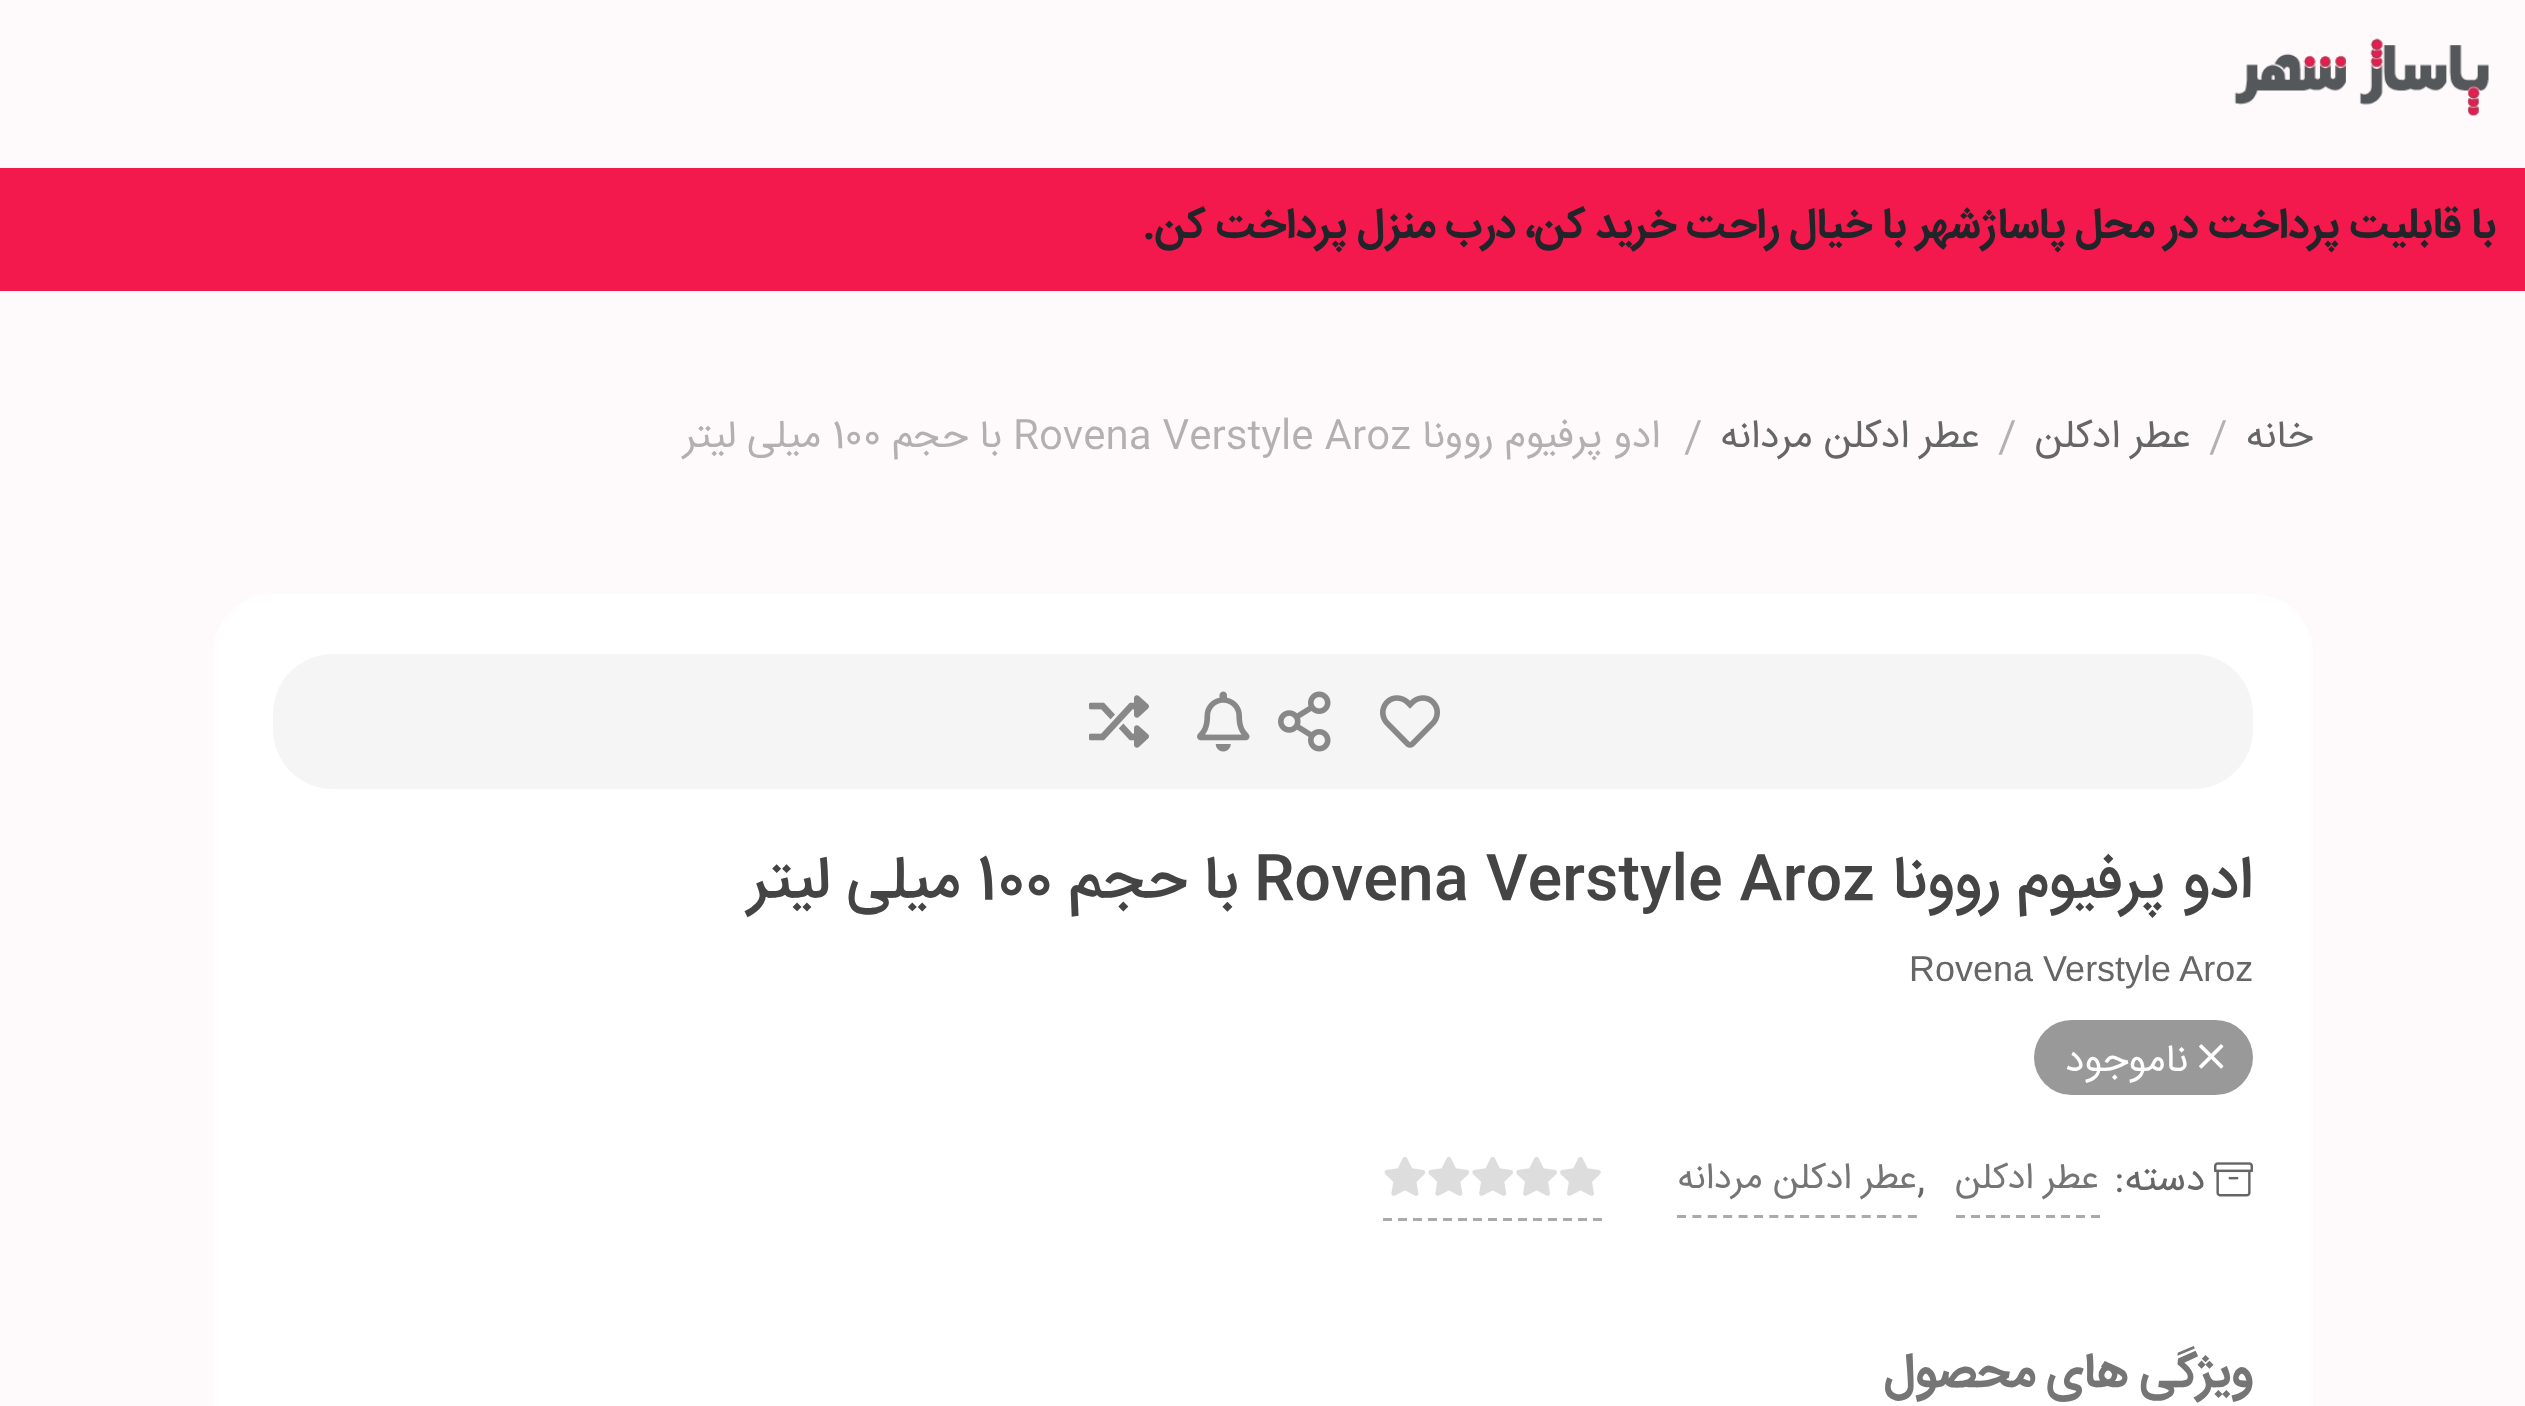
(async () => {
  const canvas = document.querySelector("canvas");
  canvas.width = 2525;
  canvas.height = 1406;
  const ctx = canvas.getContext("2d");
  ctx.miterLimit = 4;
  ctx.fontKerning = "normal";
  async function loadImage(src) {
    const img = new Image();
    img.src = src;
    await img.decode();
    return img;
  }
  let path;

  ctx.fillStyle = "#fefafb";
  ctx.fillRect(0, 0, 2525, 1406);
  ctx.drawImage(await loadImage("img/1.png"), 2234, 38, 255, 78);
  ctx.fillStyle = "#f3194c";
  ctx.fillRect(0, 168, 2525, 123);
  ctx.fillStyle = "#ffffff";
  ctx.beginPath();
  ctx.roundRect(213, 594, 2100, 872, 60);
  ctx.fill();
  ctx.fillStyle = "#f5f5f5";
  ctx.beginPath();
  ctx.roundRect(273, 654, 1980, 135, 60);
  ctx.fill();
  ctx.drawImage(await loadImage("img/2.png"), 1380, 695, 61, 53);
  ctx.drawImage(await loadImage("img/3.png"), 1278, 691, 53, 61);
  ctx.drawImage(await loadImage("img/4.png"), 1197, 691, 53, 61);
  ctx.drawImage(await loadImage("img/5.png"), 1089, 695, 60, 53);
  ctx.fillStyle = "#999999";
  ctx.beginPath();
  ctx.roundRect(2034, 1020, 219, 75, 37.5);
  ctx.fill();
  ctx.drawImage(await loadImage("img/6.png"), 2199, 1044, 25, 25);
  ctx.drawImage(await loadImage("img/7.png"), 2214, 1162, 39, 35);
  path = new Path2D("M1956 1216.5H2100");
  ctx.strokeStyle = "#aaaaaa";
  ctx.lineWidth = 3;
  ctx.setLineDash([9, 6]);
  ctx.stroke(path);
  path = new Path2D("M1677 1216.5H1917");
  ctx.setLineDash([9, 6.39]);
  ctx.stroke(path);
  path = new Path2D("M1383 1219.5H1602");
  ctx.setLineDash([9, 6]);
  ctx.stroke(path);
  ctx.drawImage(await loadImage("img/8.png"), 1384, 1157, 217, 39);
  ctx.direction = "rtl";
  ctx.font = "bold 42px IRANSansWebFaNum";
  ctx.fillStyle = "#212529";
  ctx.fillText("با قابلیت پرداخت در محل پاساژشهر با خیال راحت خرید کن، درب منزل پرداخت کن.", 2496, 237);
  ctx.save();
  ctx.beginPath();
  ctx.roundRect(213, 411, 2100, 63, 31.5);
  ctx.clip();
  ctx.font = "39px IRANSansWebFaNum";
  ctx.fillStyle = "#666666";
  ctx.fillText("خانه", 2313, 447);
  ctx.restore();
  ctx.direction = "ltr";
  ctx.font = "42px IRANSansWebFaNum";
  ctx.fillStyle = "#b2b0b1";
  ctx.fillText("/", 2209, 450);
  ctx.direction = "rtl";
  ctx.font = "39px IRANSansWebFaNum";
  ctx.fillStyle = "#666666";
  ctx.fillText("عطر ادکلن", 2191, 447);
  ctx.direction = "ltr";
  ctx.font = "42px IRANSansWebFaNum";
  ctx.fillStyle = "#b2b0b1";
  ctx.fillText("/", 1998, 450);
  ctx.direction = "rtl";
  ctx.font = "39px IRANSansWebFaNum";
  ctx.fillStyle = "#666666";
  ctx.fillText("عطر ادکلن مردانه", 1980, 447);
  ctx.direction = "ltr";
  ctx.font = "42px IRANSansWebFaNum";
  ctx.fillStyle = "#b2b0b1";
  ctx.fillText("/", 1684, 450);
  ctx.direction = "rtl";
  ctx.font = "39px IRANSansWebFaNum";
  ctx.fillText("ادو پرفیوم روونا", 1660, 447);
  ctx.direction = "ltr";
  ctx.fillText("Rovena Verstyle Aroz", 1013, 447);
  ctx.direction = "rtl";
  ctx.fillText("با حجم", 1002, 447);
  ctx.direction = "ltr";
  ctx.fillText("100", 832, 447);
  ctx.direction = "rtl";
  ctx.fillText("میلی لیتر", 821, 447);
  ctx.font = "500 60px IRANSansWebFaNum";
  ctx.fillStyle = "#444444";
  ctx.fillText("ادو پرفیوم روونا", 2253, 897);
  ctx.direction = "ltr";
  ctx.fillText("Rovena Verstyle Aroz", 1254, 897);
  ctx.direction = "rtl";
  ctx.fillText("با حجم", 1237, 897);
  ctx.direction = "ltr";
  ctx.fillText("100", 977, 897);
  ctx.direction = "rtl";
  ctx.fillText("میلی لیتر", 960, 897);
  ctx.direction = "ltr";
  ctx.font = "36px Liberation Sans";
  ctx.fillStyle = "#666666";
  ctx.fillText("Rovena Verstyle Aroz", 1909, 981);
  ctx.direction = "rtl";
  ctx.font = "39px IRANSansWebFaNum";
  ctx.fillStyle = "#ffffff";
  ctx.fillText("ناموجود", 2188, 1071);
  ctx.fillStyle = "#666666";
  ctx.fillText("دسته:", 2205, 1190);
  ctx.font = "36px IRANSansWebFaNum";
  ctx.fillStyle = "#757575";
  ctx.fillText("عطر ادکلن", 2099, 1188);
  ctx.direction = "ltr";
  ctx.font = "39px IRANSansWebFaNum";
  ctx.fillStyle = "#666666";
  ctx.fillText(",", 1917, 1190);
  ctx.direction = "rtl";
  ctx.font = "36px IRANSansWebFaNum";
  ctx.fillStyle = "#757575";
  ctx.fillText("عطر ادکلن مردانه", 1917, 1188);
  ctx.font = "bold 48px IRANSansWebFaNum";
  ctx.fillText("ویژگی های محصول", 2253, 1386);
})();
